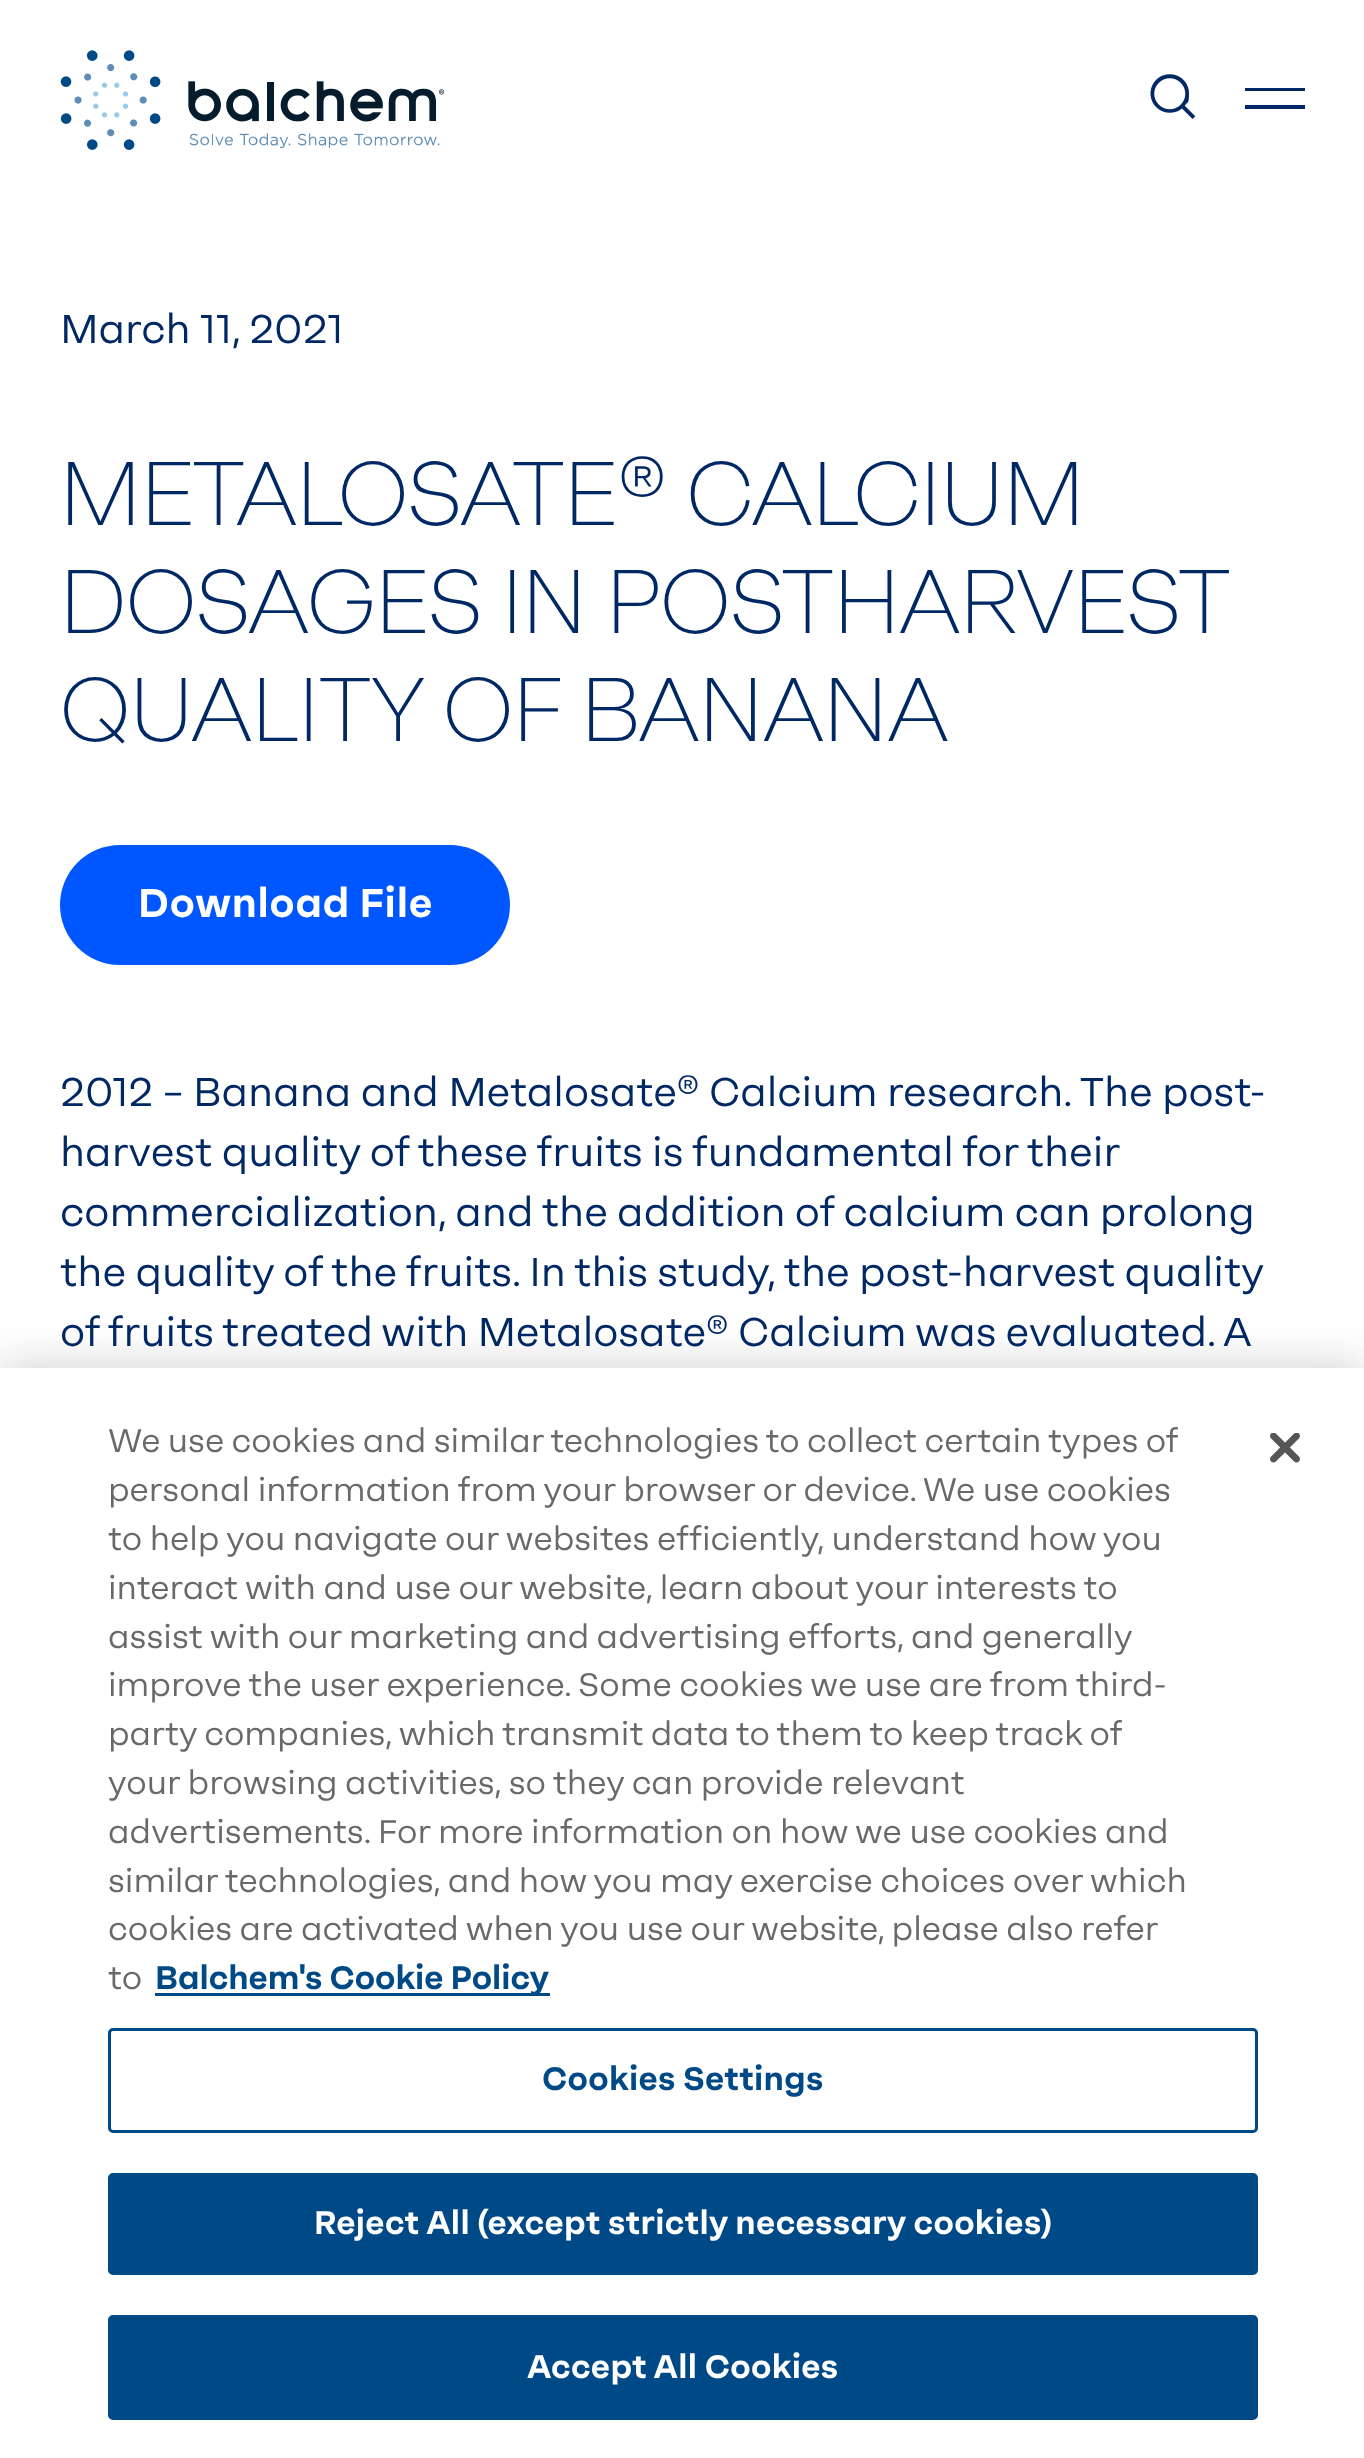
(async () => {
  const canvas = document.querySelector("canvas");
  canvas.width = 1364;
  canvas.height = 2458;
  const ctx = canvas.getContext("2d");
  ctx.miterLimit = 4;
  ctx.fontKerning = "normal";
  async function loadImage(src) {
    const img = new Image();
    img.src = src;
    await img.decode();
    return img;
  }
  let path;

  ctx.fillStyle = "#ffffff";
  ctx.fillRect(0, 0, 1364, 2458);
  ctx.drawImage(await loadImage("img/1.png"), 60, 50, 385, 100);
  ctx.drawImage(await loadImage("img/2.png"), 1150, 74, 46, 45);
  ctx.fillStyle = "#002864";
  path = new Path2D("M1245 88H1305V91H1245ZM1245 105H1305V109H1245Z");
  ctx.fill(path);
  ctx.fillStyle = "#0057ff";
  ctx.beginPath();
  ctx.roundRect(60, 845, 450, 120, 60);
  ctx.fill();
  ctx.fillStyle = "rgba(0, 0, 0, 0.2)";
  ctx.filter = "blur(22.5px)";
  ctx.beginPath();
  ctx.rect(0, 1368, 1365, 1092);
  ctx.fill();
  ctx.filter = "none";
  ctx.fillStyle = "#ffffff";
  ctx.fillRect(0, 1368, 1364, 1090);
  ctx.fillStyle = "#004987";
  ctx.fillRect(155, 1993, 395, 3);
  ctx.beginPath();
  ctx.roundRect(109.5, 2029.5, 1147, 102, 3.5);
  ctx.strokeStyle = "#004987";
  ctx.lineWidth = 3;
  ctx.stroke();
  ctx.beginPath();
  ctx.roundRect(109.5, 2174.5, 1147, 99, 3.5);
  ctx.fill();
  ctx.stroke();
  ctx.beginPath();
  ctx.roundRect(109.5, 2316.5, 1147, 102, 3.5);
  ctx.fill();
  ctx.stroke();
  ctx.drawImage(await loadImage("img/3.png"), 1270, 1433, 30, 30);
  ctx.font = "40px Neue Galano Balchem";
  ctx.fillStyle = "#002864";
  ctx.fillText("March 11, 2021", 60, 343);
  ctx.font = "200 90px Neue Galano Balchem";
  ctx.fillText("METALOSATE® CALCIUM", 60, 525);
  ctx.wordSpacing = "-1px";
  ctx.fillText("DOSAGES IN POSTHARVEST", 60, 633);
  ctx.wordSpacing = "0px";
  ctx.fillText("QUALITY OF BANANA", 60, 741);
  ctx.letterSpacing = "0.75px";
  ctx.font = "bold 40px Neue Galano Balchem";
  ctx.fillStyle = "#ffffff";
  ctx.fillText("Download File", 138, 917);
  ctx.letterSpacing = "0px";
  ctx.font = "40px Neue Galano Balchem";
  ctx.fillStyle = "#002864";
  for (const [text, x, y] of [
    ["2012 – Banana and Metalosate® Calcium research. The post-", 60, 1106],
    ["harvest quality of these fruits is fundamental for their", 60, 1166],
    ["commercialization, and the addition of calcium can prolong", 60, 1226],
    ["the quality of the fruits. In this study, the post-harvest quality", 60, 1286],
  ]) {
    ctx.fillText(text, x, y);
  }
  ctx.wordSpacing = "-0.25px";
  ctx.fillText("of fruits treated with Metalosate® Calcium was evaluated. A", 60, 1346);
  ctx.font = "32.5px Neue Galano Balchem";
  ctx.fillStyle = "#696969";
  ctx.fillText("We use cookies and similar technologies to collect certain types of", 108, 1452);
  ctx.wordSpacing = "0px";
  for (const [text, x, y] of [
    ["personal information from your browser or device. We use cookies", 108, 1501],
    ["to help you navigate our websites efficiently, understand how you", 108, 1550],
    ["interact with and use our website, learn about your interests to", 108, 1599],
  ]) {
    ctx.fillText(text, x, y);
  }
  ctx.wordSpacing = "-0.25px";
  ctx.fillText("assist with our marketing and advertising efforts, and generally", 108, 1648);
  ctx.wordSpacing = "0px";
  ctx.fillText("improve the user experience. Some cookies we use are from third-", 108, 1696);
  ctx.wordSpacing = "-0.25px";
  ctx.fillText("party companies, which transmit data to them to keep track of", 108, 1745);
  ctx.wordSpacing = "0px";
  for (const [text, x, y] of [
    ["your browsing activities, so they can provide relevant", 108, 1794],
    ["advertisements. For more information on how we use cookies and", 108, 1843],
    ["similar technologies, and how you may exercise choices over which", 108, 1892],
  ]) {
    ctx.fillText(text, x, y);
  }
  ctx.wordSpacing = "-0.1px";
  ctx.fillText("cookies are activated when you use our website, please also refer", 108, 1940);
  ctx.wordSpacing = "0px";
  ctx.fillText("to", 108, 1989);
  ctx.font = "bold 32.5px Neue Galano Balchem";
  ctx.fillStyle = "#004987";
  ctx.fillText("Balchem's Cookie Policy", 155, 1989);
  ctx.letterSpacing = "0.35px";
  ctx.fillText("Cookies Settings", 542, 2090);
  ctx.fillStyle = "#ffffff";
  ctx.fillText("Reject All (except strictly necessary cookies)", 314, 2234);
  ctx.fillText("Accept All Cookies", 527, 2378);
})();
